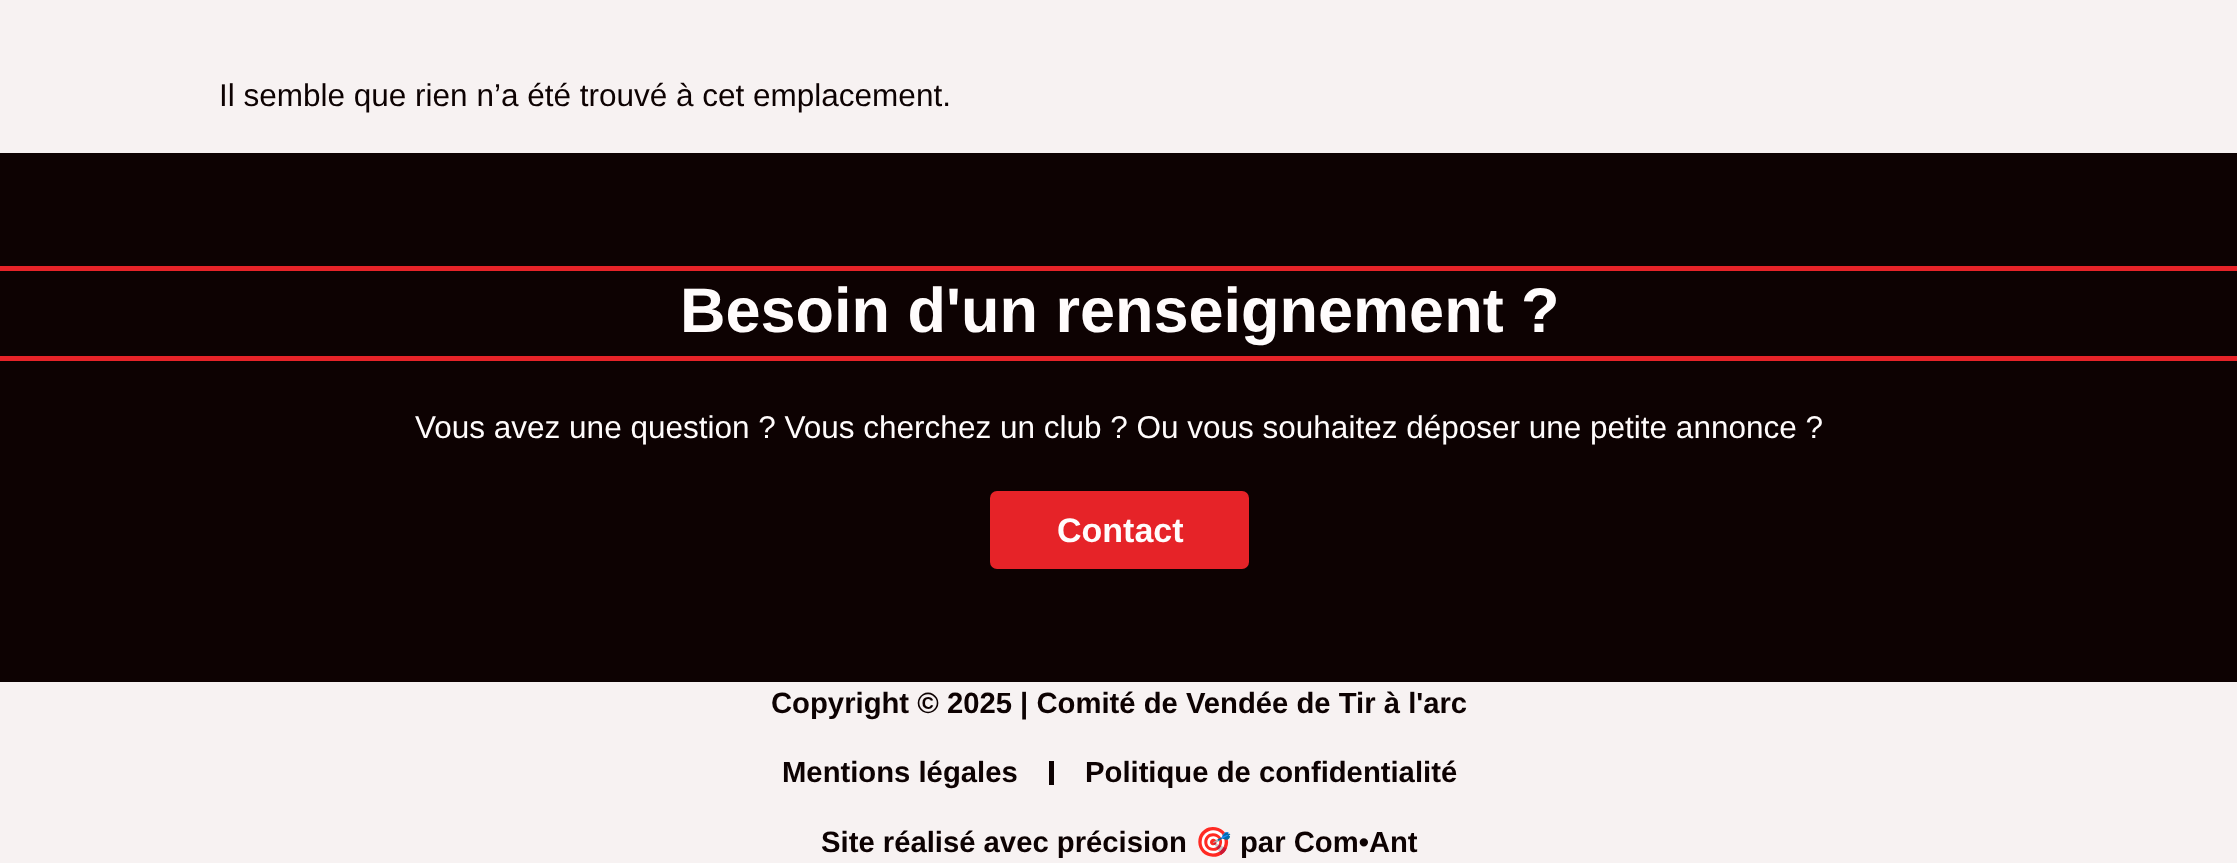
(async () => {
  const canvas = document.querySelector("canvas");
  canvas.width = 2237;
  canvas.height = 863;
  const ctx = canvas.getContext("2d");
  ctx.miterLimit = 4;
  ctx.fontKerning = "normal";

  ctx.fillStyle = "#f7f2f2";
  ctx.fillRect(0, 0, 2237, 863);
  for (const [x, y, w, h, color] of [
    [0, 153, 2237, 529, "#0d0202"],
    [0, 266, 2237, 5, "#e62328"],
    [0, 356, 2237, 5, "#e62328"],
  ]) {
    ctx.fillStyle = color;
    ctx.fillRect(x, y, w, h);
  }
  ctx.beginPath();
  ctx.roundRect(990, 491, 259, 78, 7);
  ctx.fill();
  ctx.fillStyle = "#0d0202";
  ctx.fillRect(1049, 761, 5, 24);
  ctx.font = "31.5px Liberation Sans";
  ctx.fillText("Il semble que rien n’a été trouvé à cet emplacement.", 219, 106);
  ctx.font = "bold 63px Liberation Sans";
  ctx.fillStyle = "#fffcfc";
  ctx.fillText("Besoin d'un renseignement ?", 680, 332);
  ctx.font = "31.5px Liberation Sans";
  ctx.fillText("Vous avez une question ? Vous cherchez un club ? Ou vous souhaitez déposer une petite annonce ?", 415, 438);
  ctx.font = "bold 34px Liberation Sans";
  ctx.fillText("Contact", 1057, 542);
  ctx.font = "bold 29.25px Liberation Sans";
  ctx.fillStyle = "#0d0202";
  for (const [text, x, y] of [
    ["Copyright © 2025 | Comité de Vendée de Tir à l'arc", 771, 713],
    ["Mentions légales", 782, 782],
    ["Politique de confidentialité", 1085, 782],
    ["Site réalisé avec précision", 821, 852],
  ]) {
    ctx.fillText(text, x, y);
  }
  ctx.font = "bold 29.25px Noto Color Emoji";
  ctx.fillText("🎯", 1195, 852);
  ctx.font = "bold 29.25px Liberation Sans";
  ctx.fillText("par Com•Ant", 1240, 852);
})();
